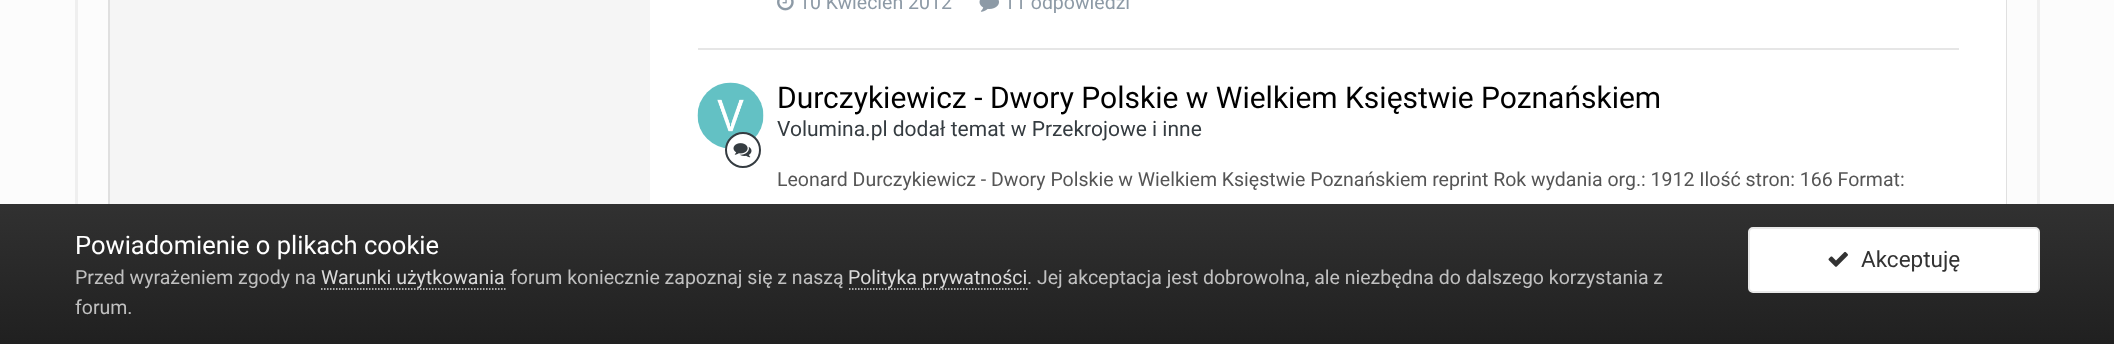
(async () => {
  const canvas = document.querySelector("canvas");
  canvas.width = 2114;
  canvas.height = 344;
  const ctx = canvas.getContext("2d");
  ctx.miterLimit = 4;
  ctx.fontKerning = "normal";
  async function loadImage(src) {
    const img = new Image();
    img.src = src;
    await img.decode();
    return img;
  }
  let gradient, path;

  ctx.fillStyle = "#fcfcfc";
  ctx.fillRect(0, 0, 2114, 344);
  ctx.strokeStyle = "#efefef";
  ctx.lineWidth = 3;
  ctx.strokeRect(76.5, -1.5, 1962, 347);
  ctx.strokeStyle = "#e0e0e0";
  ctx.lineWidth = 2;
  ctx.strokeRect(109, -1, 1897, 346);
  for (const [x, y, w, h, color] of [
    [110, 0, 540, 204, "#f5f5f5"],
    [650, 0, 1356, 204, "#ffffff"],
    [698, 48, 1261, 2, "#e6e6e6"],
  ]) {
    ctx.fillStyle = color;
    ctx.fillRect(x, y, w, h);
  }
  ctx.drawImage(await loadImage("img/1.png"), 777, 0, 17, 11);
  ctx.drawImage(await loadImage("img/2.png"), 979, 0, 20, 12);
  ctx.drawImage(await loadImage("img/3.png"), 697, 82, 67, 67);
  ctx.fillStyle = "#ffffff";
  ctx.beginPath();
  ctx.arc(743, 150, 17, 0, Math.PI * 2);
  ctx.fill();
  ctx.strokeStyle = "#353c41";
  ctx.stroke();
  ctx.drawImage(await loadImage("img/4.png"), 733, 143, 19, 15);
  gradient = ctx.createLinearGradient(1058, 204, 1058, 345);
  gradient.addColorStop(0, "#313131");
  gradient.addColorStop(1, "#202020");
  ctx.fillStyle = gradient;
  ctx.fillRect(0, 204, 2114, 140);
  path = new Path2D("M321 289H505.5");
  ctx.strokeStyle = "#dadada";
  ctx.lineWidth = 1.5;
  ctx.setLineDash([1.5, 1.5]);
  ctx.stroke(path);
  path = new Path2D("M849 289H1027.5");
  ctx.stroke(path);
  ctx.fillStyle = "#ffffff";
  ctx.beginPath();
  ctx.roundRect(1749, 228, 290, 64, 4);
  ctx.fill();
  ctx.strokeStyle = "#e8e8e8";
  ctx.lineWidth = 2;
  ctx.setLineDash([]);
  ctx.stroke();
  ctx.drawImage(await loadImage("img/5.png"), 1828, 251, 20, 16);
  ctx.font = "19.5px Roboto";
  ctx.fillStyle = "#8d9aa6";
  ctx.fillText("10 Kwiecień 2012", 799, 9);
  ctx.fillText("11 odpowiedzi", 1004, 9);
  ctx.font = "30px Roboto";
  ctx.fillStyle = "#000000";
  ctx.fillText("Durczykiewicz - Dwory Polskie w Wielkiem Księstwie Poznańskiem", 777, 108);
  ctx.font = "21px Roboto";
  ctx.fillStyle = "#353c41";
  ctx.fillText("Volumina.pl dodał temat w Przekrojowe i inne", 777, 136);
  ctx.font = "19.5px Roboto";
  ctx.fillStyle = "#555555";
  ctx.fillText("Leonard Durczykiewicz - Dwory Polskie w Wielkiem Księstwie Poznańskiem reprint Rok wydania org.: 1912 Ilość stron: 166 Format:", 777, 186);
  ctx.font = "25.5px Roboto";
  ctx.fillStyle = "#ffffff";
  ctx.fillText("Powiadomienie o plikach cookie", 75, 254);
  ctx.font = "19.5px Roboto";
  ctx.fillStyle = "#c0c0c0";
  ctx.fillText("Przed wyrażeniem zgody na", 75, 284);
  ctx.fillStyle = "#dadada";
  ctx.fillText("Warunki użytkowania", 321, 284);
  ctx.fillStyle = "#c0c0c0";
  ctx.fillText("forum koniecznie zapoznaj się z naszą", 510, 284);
  ctx.fillStyle = "#dadada";
  ctx.fillText("Polityka prywatności", 848, 284);
  ctx.fillStyle = "#c0c0c0";
  ctx.fillText(". Jej akceptacja jest dobrowolna, ale niezbędna do dalszego korzystania z", 1027, 284);
  ctx.fillText("forum.", 75, 314);
  ctx.font = "22.5px Roboto";
  ctx.fillStyle = "#333333";
  ctx.fillText("Akceptuję", 1861, 267);
})();
